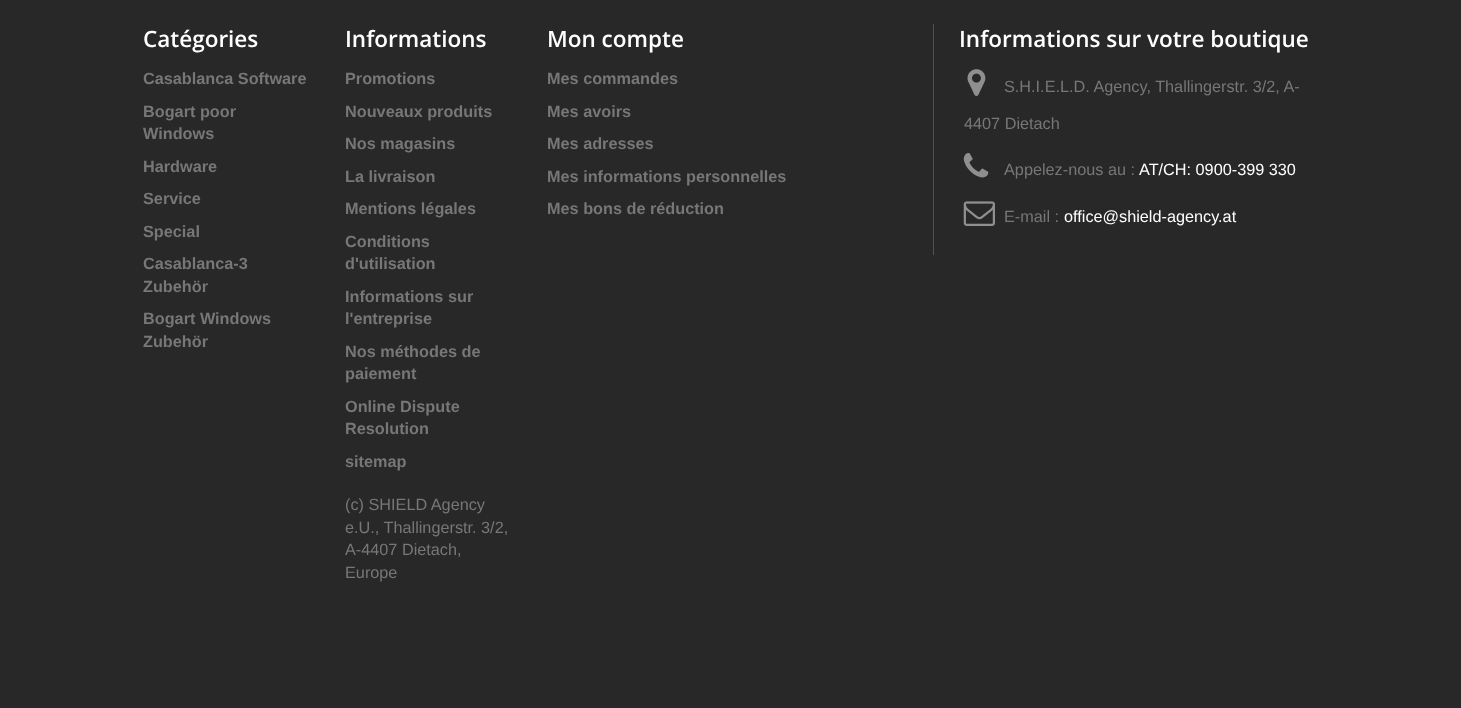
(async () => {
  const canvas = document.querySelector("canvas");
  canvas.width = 1461;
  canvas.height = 708;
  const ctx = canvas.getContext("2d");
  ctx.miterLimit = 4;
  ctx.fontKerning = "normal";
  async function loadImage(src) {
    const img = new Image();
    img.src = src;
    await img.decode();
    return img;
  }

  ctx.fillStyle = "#282828";
  ctx.fillRect(0, 0, 1461, 708);
  ctx.fillStyle = "#515151";
  ctx.fillRect(933, 24, 1, 231);
  ctx.drawImage(await loadImage("img/1.png"), 967, 69, 19, 27);
  ctx.drawImage(await loadImage("img/2.png"), 963, 153, 26, 25);
  ctx.drawImage(await loadImage("img/3.png"), 963, 201, 32, 25);
  ctx.font = "600 22.5px Open Sans";
  ctx.fillStyle = "#ffffff";
  ctx.fillText("Catégories", 143, 47);
  ctx.font = "bold 16.25px Liberation Sans";
  ctx.fillStyle = "#777777";
  for (const [text, x, y] of [
    ["Casablanca Software", 143, 84],
    ["Bogart poor", 143, 117],
    ["Windows", 143, 139],
    ["Hardware", 143, 172],
    ["Service", 143, 204],
    ["Special", 143, 237],
    ["Casablanca-3", 143, 269],
    ["Zubehör", 143, 292],
    ["Bogart Windows", 143, 324],
    ["Zubehör", 143, 347],
  ]) {
    ctx.fillText(text, x, y);
  }
  ctx.font = "600 22.5px Open Sans";
  ctx.fillStyle = "#ffffff";
  ctx.fillText("Informations", 345, 47);
  ctx.font = "bold 16.25px Liberation Sans";
  ctx.fillStyle = "#777777";
  for (const [text, x, y] of [
    ["Promotions", 345, 84],
    ["Nouveaux produits", 345, 117],
    ["Nos magasins", 345, 149],
    ["La livraison", 345, 182],
    ["Mentions légales", 345, 214],
    ["Conditions", 345, 247],
    ["d'utilisation", 345, 269],
    ["Informations sur", 345, 302],
    ["l'entreprise", 345, 324],
    ["Nos méthodes de", 345, 357],
    ["paiement", 345, 379],
    ["Online Dispute", 345, 412],
    ["Resolution", 345, 434],
    ["sitemap", 345, 467],
  ]) {
    ctx.fillText(text, x, y);
  }
  ctx.font = "16.25px Liberation Sans";
  for (const [text, x, y] of [
    ["(c) SHIELD Agency", 345, 510],
    ["e.U., Thallingerstr. 3/2,", 345, 533],
    ["A-4407 Dietach,", 345, 555],
    ["Europe", 345, 578],
  ]) {
    ctx.fillText(text, x, y);
  }
  ctx.font = "600 22.5px Open Sans";
  ctx.fillStyle = "#ffffff";
  ctx.fillText("Mon compte", 547, 47);
  ctx.font = "bold 16.25px Liberation Sans";
  ctx.fillStyle = "#777777";
  for (const [text, x, y] of [
    ["Mes commandes", 547, 84],
    ["Mes avoirs", 547, 117],
    ["Mes adresses", 547, 149],
    ["Mes informations personnelles", 547, 182],
    ["Mes bons de réduction", 547, 214],
  ]) {
    ctx.fillText(text, x, y);
  }
  ctx.font = "600 22.5px Open Sans";
  ctx.fillStyle = "#ffffff";
  ctx.fillText("Informations sur votre boutique", 959, 47);
  ctx.font = "16.25px Liberation Sans";
  ctx.fillStyle = "#777777";
  for (const [text, x, y] of [
    ["S.H.I.E.L.D. Agency, Thallingerstr. 3/2, A-", 1004, 92],
    ["4407 Dietach", 964, 129],
    ["Appelez-nous au :", 1004, 175],
  ]) {
    ctx.fillText(text, x, y);
  }
  ctx.fillStyle = "#ffffff";
  ctx.fillText("AT/CH: 0900-399 330", 1139, 175);
  ctx.fillStyle = "#777777";
  ctx.fillText("E-mail :", 1004, 222);
  ctx.fillStyle = "#ffffff";
  ctx.fillText("office@shield-agency.at", 1064, 222);
})();
